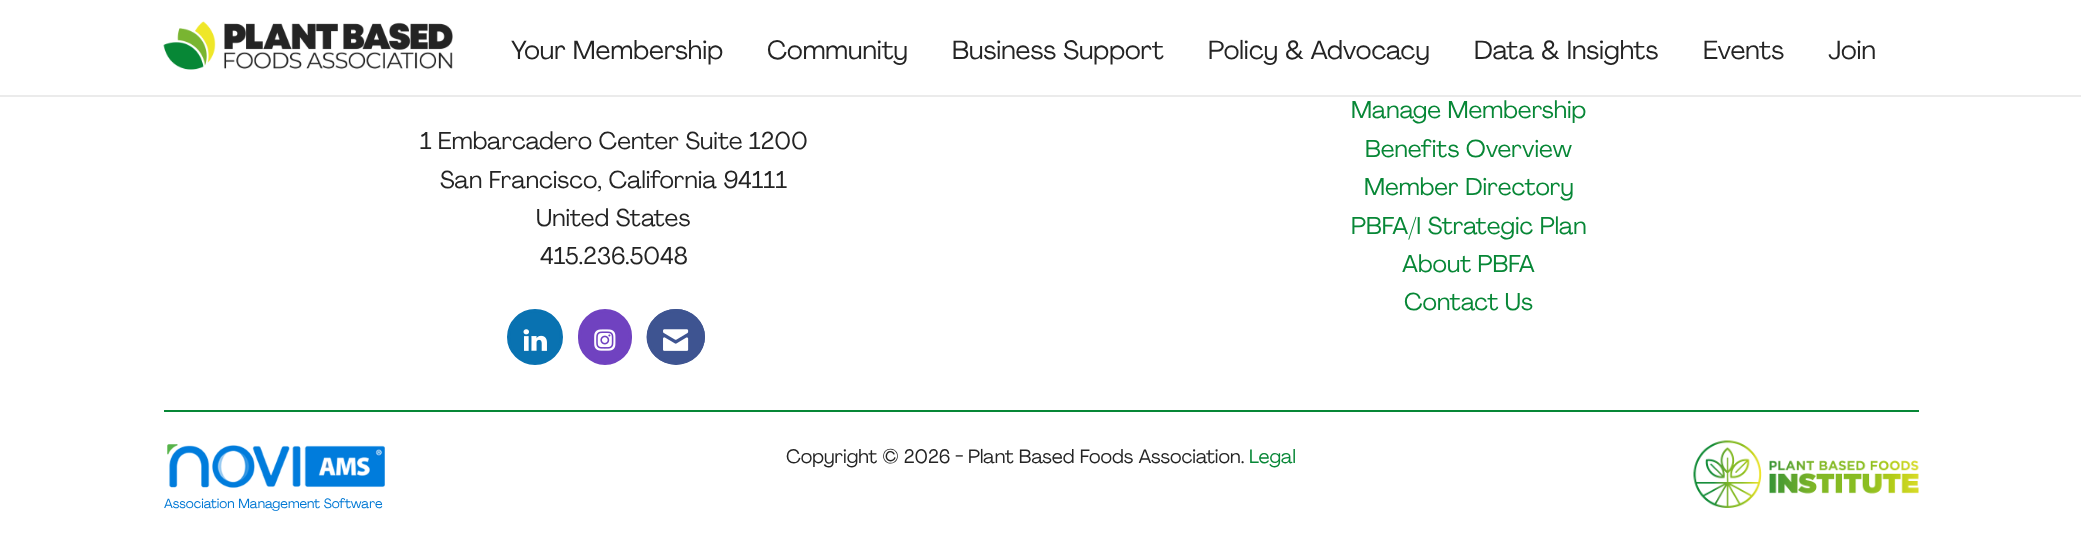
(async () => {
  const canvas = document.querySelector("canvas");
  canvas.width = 2081;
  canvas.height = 543;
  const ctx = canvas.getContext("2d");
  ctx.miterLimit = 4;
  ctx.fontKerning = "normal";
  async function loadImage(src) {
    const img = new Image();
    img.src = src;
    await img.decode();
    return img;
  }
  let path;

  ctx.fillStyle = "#ffffff";
  ctx.fillRect(0, 0, 2081, 543);
  ctx.fillStyle = "#ebebeb";
  ctx.fillRect(0, 95, 2081, 2);
  ctx.drawImage(await loadImage("img/1.png"), 163, 21, 290, 49);
  ctx.fillStyle = "#0972b1";
  ctx.beginPath();
  ctx.arc(535, 337, 26.5, 0, Math.PI * 2);
  ctx.fill();
  ctx.strokeStyle = "#0972b1";
  ctx.lineWidth = 3;
  ctx.stroke();
  ctx.drawImage(await loadImage("img/2.png"), 523, 329, 24, 22);
  ctx.fillStyle = "#7042c0";
  ctx.beginPath();
  ctx.roundRect(579.5, 310.5, 51, 53, 25.5);
  ctx.fill();
  ctx.strokeStyle = "#7042c0";
  ctx.stroke();
  ctx.drawImage(await loadImage("img/3.png"), 594, 329, 22, 22);
  ctx.fillStyle = "#3e5491";
  ctx.beginPath();
  ctx.ellipse(676, 337, 29, 28, 0, 0, Math.PI * 2);
  ctx.fill();
  path = new Path2D("M676 310.5C691 310.5 703.5 322.5 703.5 337C703.5 351 691 363 676 363C660.5 363 648 351 648 337C648 322.5 660.5 310.5 676 310.5Z");
  ctx.strokeStyle = "#3e5491";
  ctx.stroke(path);
  ctx.drawImage(await loadImage("img/4.png"), 663, 329, 26, 22);
  ctx.fillStyle = "#078736";
  ctx.fillRect(164, 410, 1755, 2);
  ctx.drawImage(await loadImage("img/5.png"), 1693, 440, 226, 68);
  ctx.drawImage(await loadImage("img/6.png"), 167, 444, 218, 44);
  ctx.font = "26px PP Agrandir";
  ctx.fillStyle = "#242424";
  for (const [text, x, y] of [
    ["Your Membership", 511, 59],
    ["Community", 767, 59],
    ["Business Support", 952, 59],
    ["Policy & Advocacy", 1208, 59],
    ["Data & Insights", 1474, 59],
    ["Events", 1703, 59],
    ["Join", 1828, 59],
  ]) {
    ctx.fillText(text, x, y);
  }
  ctx.font = "24px PP Agrandir";
  for (const [text, x, y] of [
    ["1 Embarcadero Center Suite 1200", 420, 149],
    ["San Francisco, California 94111", 440, 188],
    ["United States", 536, 226],
    ["415.236.5048", 540, 264],
  ]) {
    ctx.fillText(text, x, y);
  }
  ctx.fillStyle = "#078736";
  for (const [text, x, y] of [
    ["Manage Membership", 1351, 118],
    ["Benefits Overview", 1365, 157],
    ["Member Directory", 1364, 195],
    ["PBFA/I Strategic Plan", 1351, 234],
    ["About PBFA", 1402, 272],
    ["Contact Us", 1404, 310],
  ]) {
    ctx.fillText(text, x, y);
  }
  ctx.font = "19.2px PP Agrandir";
  ctx.fillStyle = "#242424";
  ctx.fillText("Copyright © 2026 - Plant Based Foods Association.", 786, 463);
  ctx.fillStyle = "#078736";
  ctx.fillText("Legal", 1249, 463);
  ctx.font = "13.25px PP Agrandir";
  ctx.fillStyle = "#0078d4";
  ctx.fillText("Association Management Software", 164, 508);
})();
